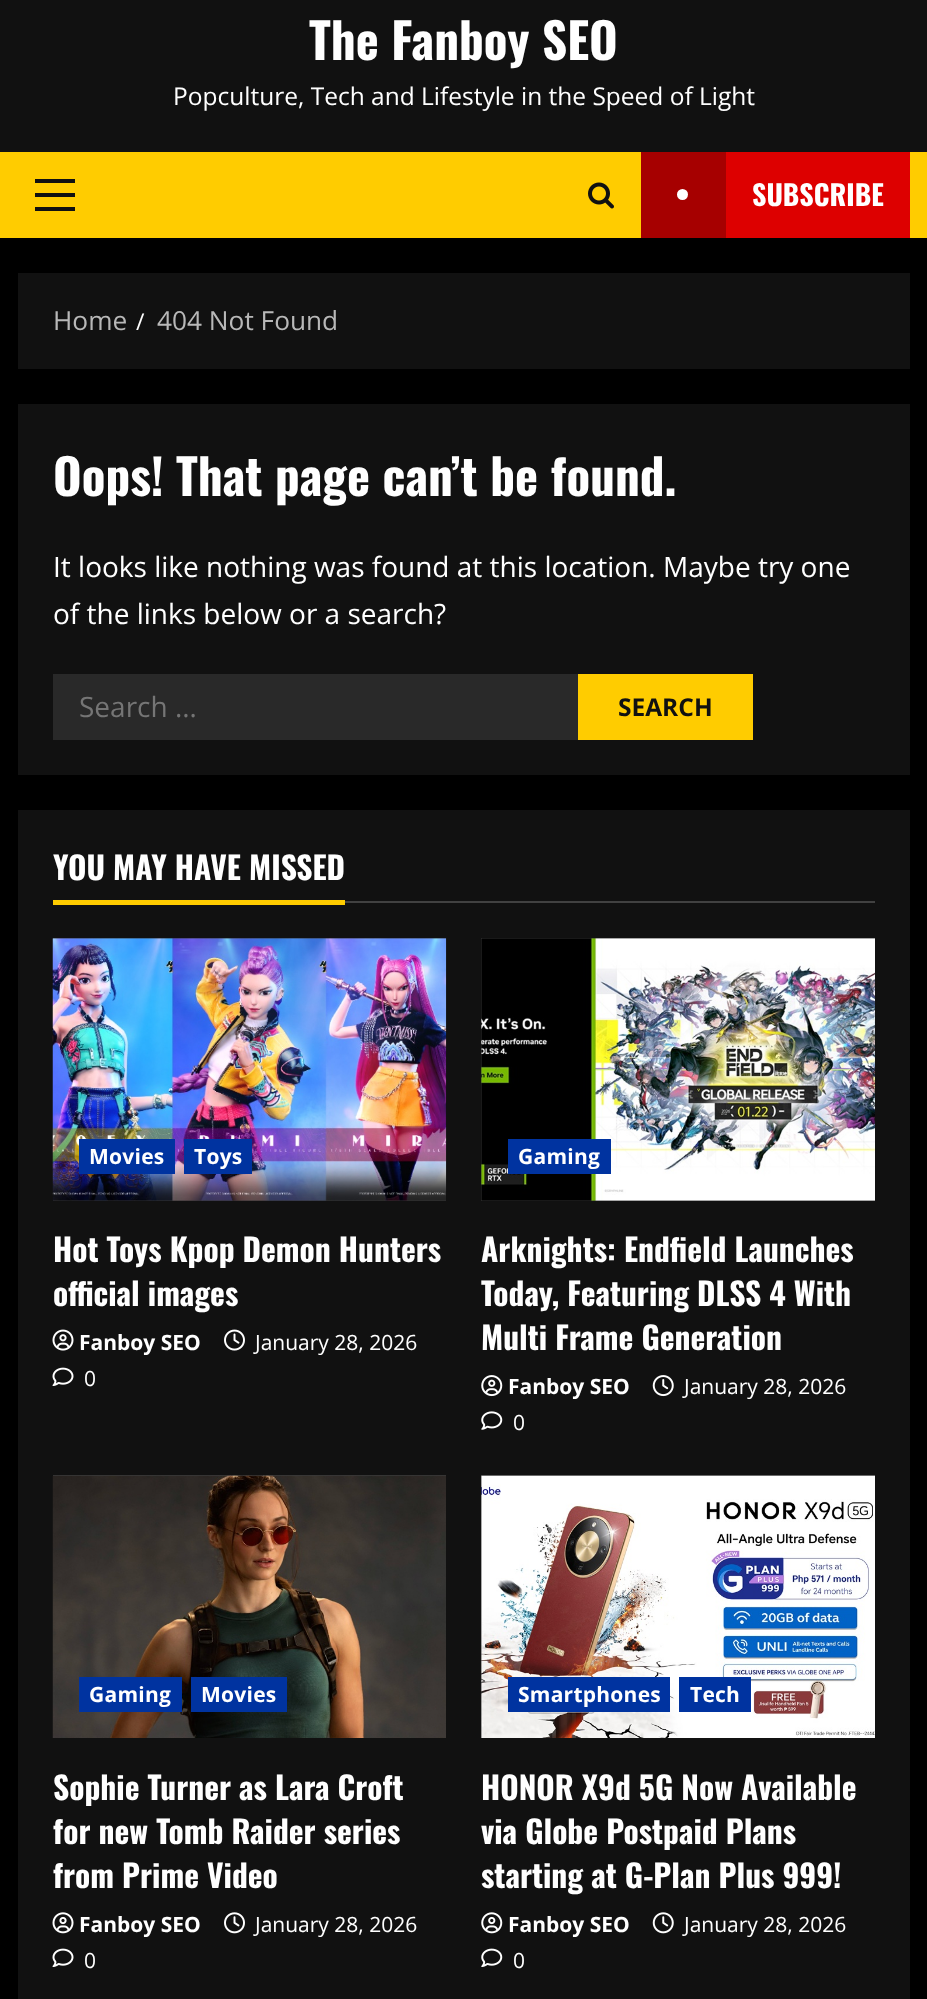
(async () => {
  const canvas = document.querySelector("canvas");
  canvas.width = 927;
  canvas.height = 1999;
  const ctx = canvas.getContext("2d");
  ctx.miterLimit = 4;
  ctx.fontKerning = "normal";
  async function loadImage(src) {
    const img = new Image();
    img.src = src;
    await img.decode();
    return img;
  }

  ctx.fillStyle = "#000000";
  ctx.fillRect(0, 0, 927, 1999);
  for (const [x, y, w, h, color] of [
    [0, 0, 927, 152, "#111111"],
    [0, 152, 927, 86, "#ffcc00"],
    [35, 193, 40, 4, "#111111"],
    [35, 179, 40, 4, "#111111"],
    [35, 207, 40, 4, "#111111"],
  ]) {
    ctx.fillStyle = color;
    ctx.fillRect(x, y, w, h);
  }
  ctx.drawImage(await loadImage("img/1.png"), 588, 182, 26, 27);
  ctx.fillStyle = "#dd0000";
  ctx.fillRect(726, 152, 184, 86);
  ctx.fillStyle = "#a60000";
  ctx.fillRect(641, 152, 85, 86);
  ctx.fillStyle = "#ffffff";
  ctx.beginPath();
  ctx.arc(682.5, 194.5, 5.5, 0, Math.PI * 2);
  ctx.fill();
  for (const [x, y, w, h, color] of [
    [18, 273, 892, 96, "#111111"],
    [18, 404, 892, 371, "#111111"],
    [53, 674, 525, 66, "#292929"],
    [578, 674, 175, 66, "#ffcc00"],
    [18, 810, 892, 1189, "#111111"],
    [345, 901, 530, 2, "#414141"],
    [53, 900, 292, 5, "#ffcc00"],
    [53, 938, 393, 263, "#3a3a3a"],
  ]) {
    ctx.fillStyle = color;
    ctx.fillRect(x, y, w, h);
  }
  ctx.drawImage(await loadImage("img/2.png"), 52, 938, 395, 263);
  ctx.fillStyle = "#0033a0";
  ctx.fillRect(79, 1139, 96, 35);
  ctx.fillRect(184, 1139, 68, 35);
  ctx.drawImage(await loadImage("img/3.png"), 52, 1329, 22, 22);
  ctx.drawImage(await loadImage("img/4.png"), 224, 1329, 21, 22);
  ctx.drawImage(await loadImage("img/5.png"), 52, 1367, 22, 19);
  ctx.fillStyle = "#3a3a3a";
  ctx.fillRect(481, 938, 394, 263);
  ctx.drawImage(await loadImage("img/6.png"), 481, 938, 394, 263);
  ctx.fillStyle = "#0033a0";
  ctx.fillRect(508, 1139, 103, 35);
  ctx.drawImage(await loadImage("img/7.png"), 481, 1375, 22, 22);
  ctx.drawImage(await loadImage("img/8.png"), 652, 1375, 22, 22);
  ctx.drawImage(await loadImage("img/9.png"), 481, 1411, 22, 19);
  ctx.fillStyle = "#3a3a3a";
  ctx.fillRect(53, 1475, 393, 1);
  ctx.drawImage(await loadImage("img/10.png"), 52, 1475, 394, 263);
  ctx.fillStyle = "#0033a0";
  ctx.fillRect(79, 1677, 103, 35);
  ctx.fillRect(191, 1677, 96, 35);
  ctx.drawImage(await loadImage("img/11.png"), 52, 1912, 22, 22);
  ctx.drawImage(await loadImage("img/12.png"), 224, 1912, 21, 22);
  ctx.drawImage(await loadImage("img/5.png"), 52, 1948, 22, 19);
  ctx.fillStyle = "#3a3a3a";
  ctx.fillRect(481, 1475, 394, 263);
  ctx.drawImage(await loadImage("img/13.png"), 481, 1475, 394, 263);
  ctx.fillStyle = "#0033a0";
  ctx.fillRect(508, 1677, 162, 35);
  ctx.fillRect(679, 1677, 72, 35);
  ctx.drawImage(await loadImage("img/14.png"), 481, 1912, 22, 22);
  ctx.drawImage(await loadImage("img/15.png"), 652, 1912, 22, 22);
  ctx.drawImage(await loadImage("img/16.png"), 481, 1948, 22, 19);
  ctx.font = "bold 49px Oswald";
  ctx.fillStyle = "#ffffff";
  ctx.fillText("The Fanboy SEO", 309, 60);
  ctx.font = "24.5px Open Sans";
  ctx.fillText("Popculture, Tech and Lifestyle in the Speed of Light", 173, 105);
  ctx.font = "bold 28px Oswald";
  ctx.fillText("SUBSCRIBE", 752, 206);
  ctx.font = "26.25px Open Sans";
  ctx.fillStyle = "#b8b8b8";
  ctx.fillText("Home", 53, 330);
  ctx.font = "23px Open Sans";
  ctx.fillStyle = "#ffffff";
  ctx.fillText("/", 136, 330);
  ctx.font = "26.25px Open Sans";
  ctx.fillStyle = "#b8b8b8";
  ctx.fillText("404 Not Found", 157, 330);
  ctx.font = "bold 49px Oswald";
  ctx.fillStyle = "#ffffff";
  ctx.fillText("Oops! That page can’t be found.", 53, 496);
  ctx.font = "28px Open Sans";
  ctx.fillText("It looks like nothing was found at this location. Maybe try one", 53, 577);
  ctx.fillText("of the links below or a search?", 53, 624);
  ctx.fillStyle = "#757575";
  ctx.fillText("Search …", 79, 717);
  ctx.font = "bold 24.5px Open Sans";
  ctx.fillStyle = "#111111";
  ctx.fillText("SEARCH", 618, 716);
  ctx.font = "bold 31.5px Oswald";
  ctx.fillStyle = "#ffffff";
  ctx.fillText("YOU MAY HAVE MISSED", 53, 880);
  ctx.letterSpacing = "0.25px";
  ctx.font = "bold 21px Open Sans";
  ctx.fillText("Movies", 89, 1164);
  ctx.fillText("Toys", 194, 1164);
  ctx.letterSpacing = "0px";
  ctx.font = "bold 31.5px Oswald";
  ctx.fillText("Hot Toys Kpop Demon Hunters", 53, 1262);
  ctx.fillText("official images", 53, 1306);
  ctx.font = "bold 21px Open Sans";
  ctx.fillText("Fanboy SEO", 79, 1350);
  ctx.font = "21px Open Sans";
  ctx.fillText("January 28, 2026", 255, 1350);
  ctx.fillText("0", 84, 1386);
  ctx.letterSpacing = "0.25px";
  ctx.font = "bold 21px Open Sans";
  ctx.fillText("Gaming", 518, 1164);
  ctx.letterSpacing = "0px";
  ctx.font = "bold 31.5px Oswald";
  for (const [text, x, y] of [
    ["Arknights: Endfield Launches", 481, 1262],
    ["Today, Featuring DLSS 4 With", 481, 1306],
    ["Multi Frame Generation", 481, 1350],
  ]) {
    ctx.fillText(text, x, y);
  }
  ctx.font = "bold 21px Open Sans";
  ctx.fillText("Fanboy SEO", 508, 1394);
  ctx.font = "21px Open Sans";
  ctx.fillText("January 28, 2026", 684, 1394);
  ctx.fillText("0", 513, 1430);
  ctx.letterSpacing = "0.25px";
  ctx.font = "bold 21px Open Sans";
  ctx.fillText("Gaming", 89, 1702);
  ctx.fillText("Movies", 201, 1702);
  ctx.letterSpacing = "0px";
  ctx.font = "bold 31.5px Oswald";
  for (const [text, x, y] of [
    ["Sophie Turner as Lara Croft", 53, 1800],
    ["for new Tomb Raider series", 53, 1844],
    ["from Prime Video", 53, 1888],
  ]) {
    ctx.fillText(text, x, y);
  }
  ctx.font = "bold 21px Open Sans";
  ctx.fillText("Fanboy SEO", 79, 1932);
  ctx.font = "21px Open Sans";
  ctx.fillText("January 28, 2026", 255, 1932);
  ctx.fillText("0", 84, 1968);
  ctx.letterSpacing = "0.25px";
  ctx.font = "bold 21px Open Sans";
  ctx.fillText("Smartphones", 518, 1702);
  ctx.fillText("Tech", 690, 1702);
  ctx.letterSpacing = "0px";
  ctx.font = "bold 31.5px Oswald";
  for (const [text, x, y] of [
    ["HONOR X9d 5G Now Available", 481, 1800],
    ["via Globe Postpaid Plans", 481, 1844],
    ["starting at G-Plan Plus 999!", 481, 1888],
  ]) {
    ctx.fillText(text, x, y);
  }
  ctx.font = "bold 21px Open Sans";
  ctx.fillText("Fanboy SEO", 508, 1932);
  ctx.font = "21px Open Sans";
  ctx.fillText("January 28, 2026", 684, 1932);
  ctx.fillText("0", 513, 1968);
})();
